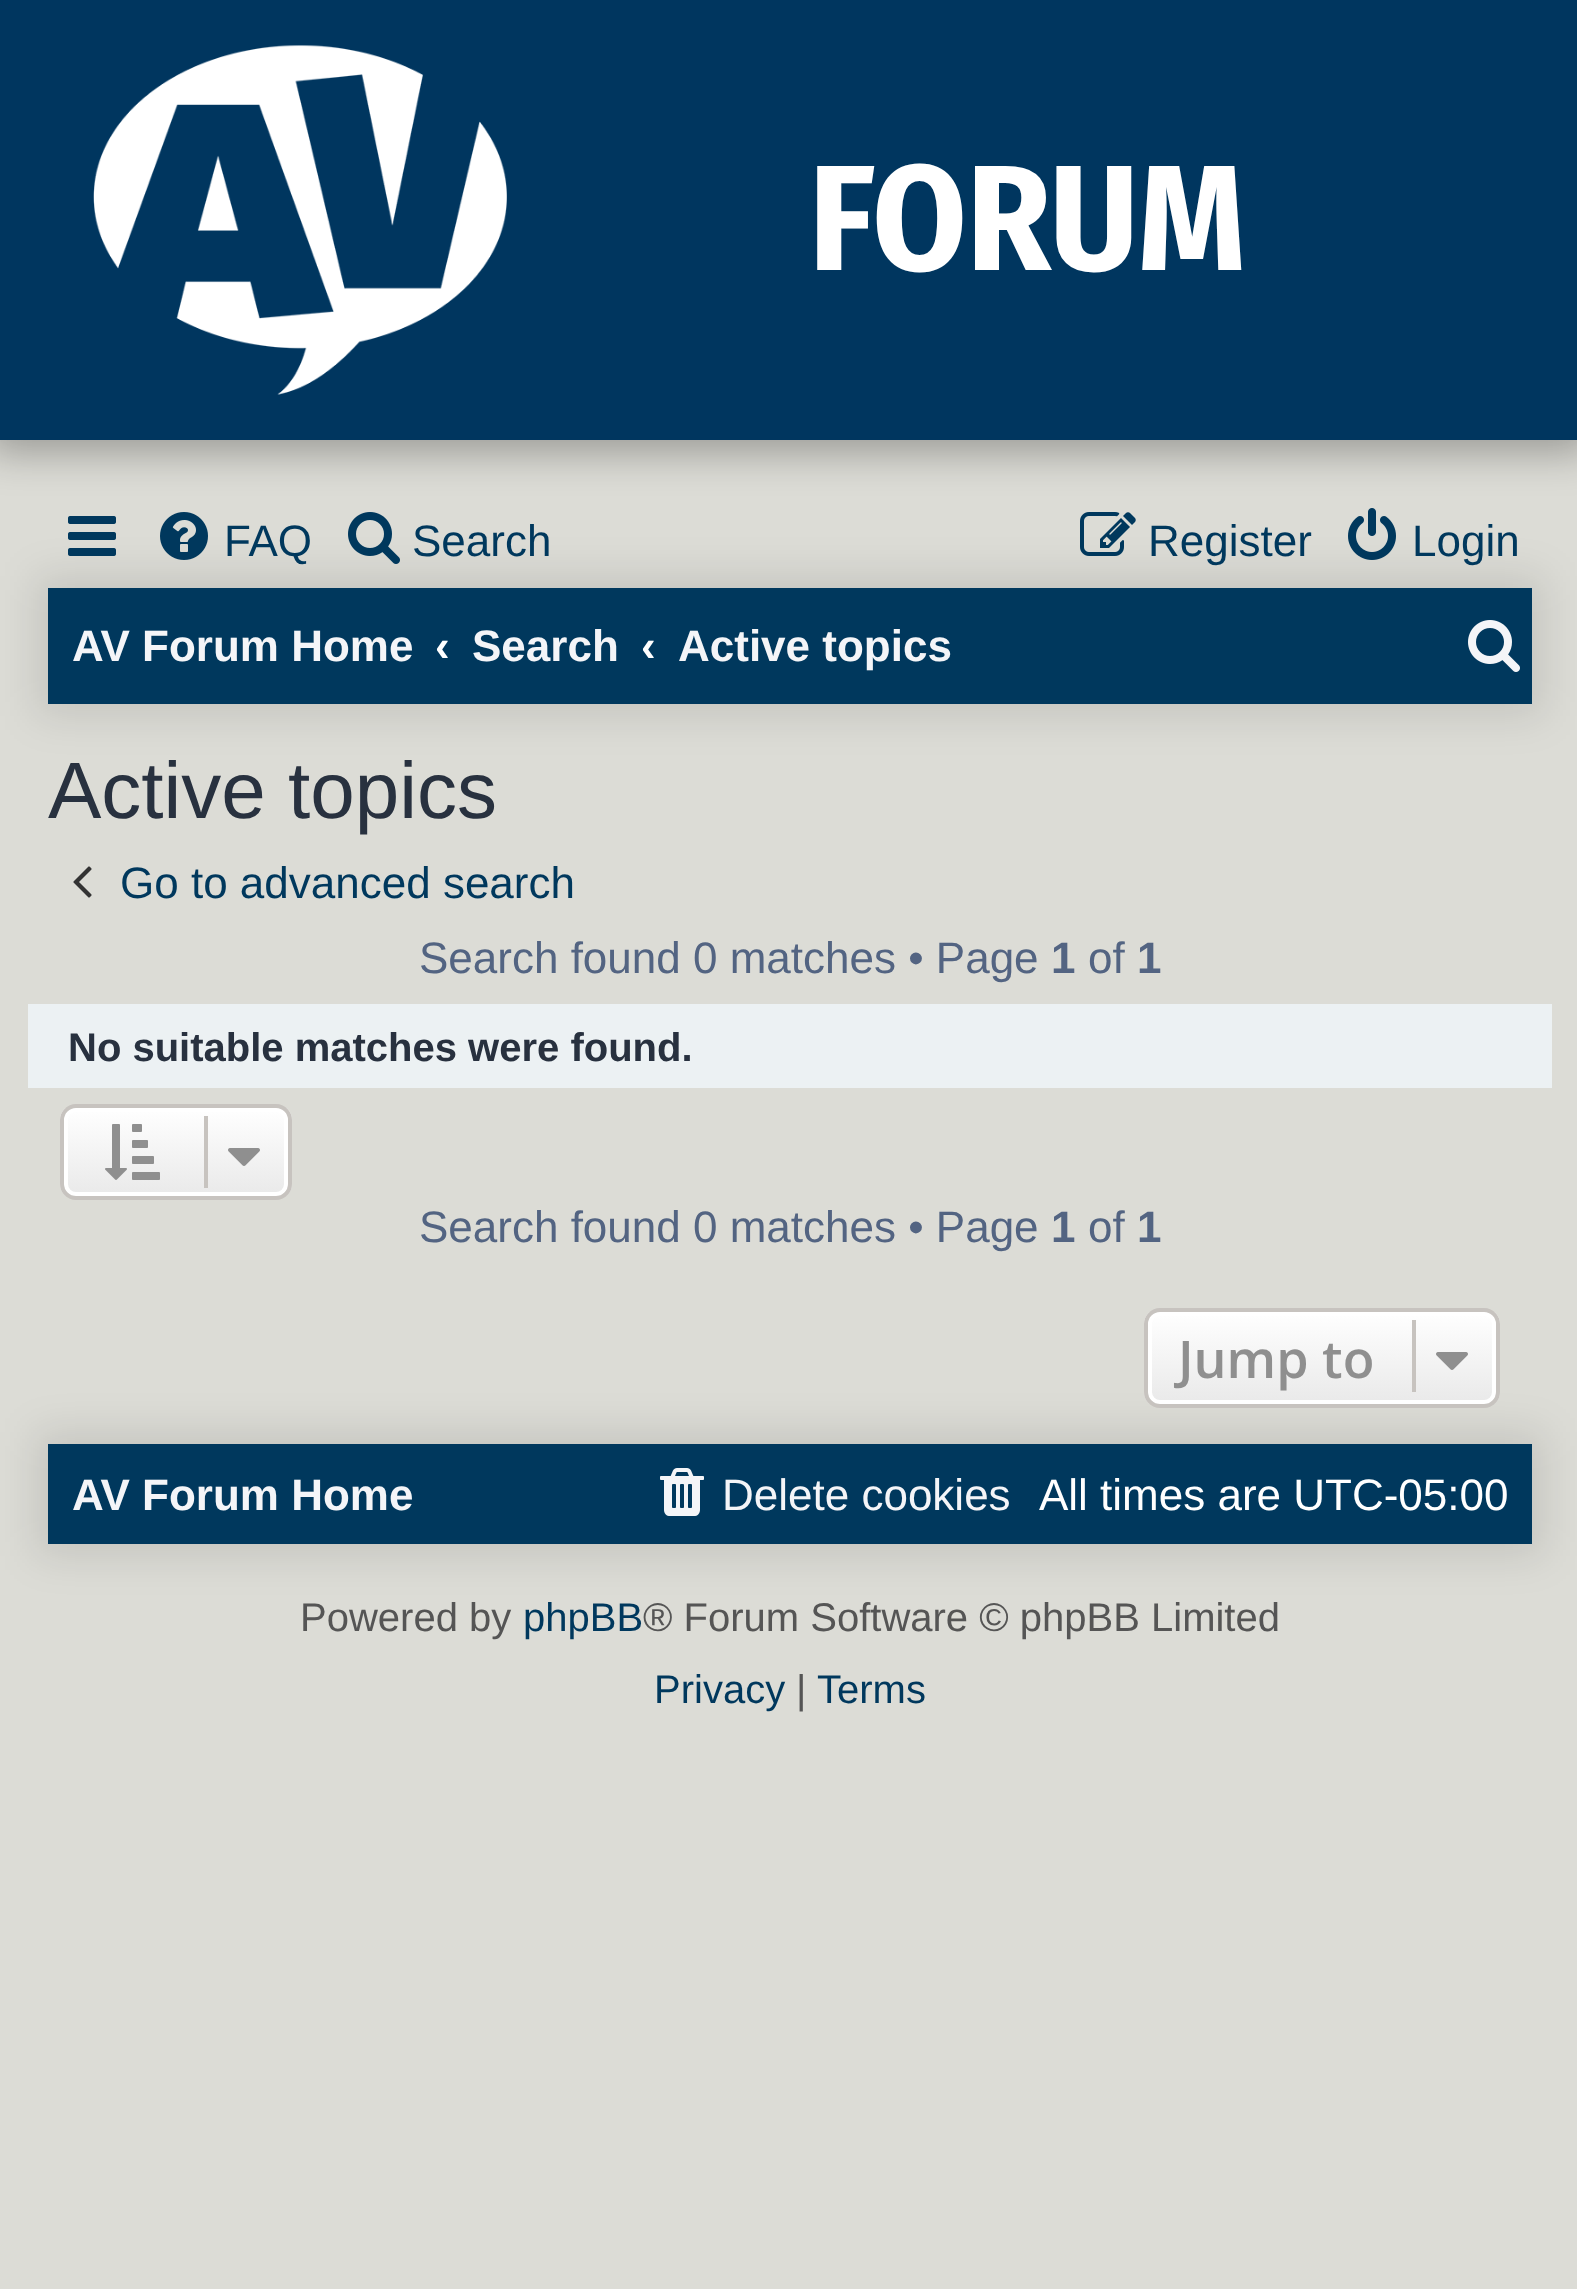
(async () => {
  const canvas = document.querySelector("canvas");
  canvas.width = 1577;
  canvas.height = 2289;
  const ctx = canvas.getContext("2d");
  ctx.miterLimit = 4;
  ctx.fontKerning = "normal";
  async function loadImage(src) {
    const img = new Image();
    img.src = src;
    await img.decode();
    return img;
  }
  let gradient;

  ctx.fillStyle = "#dcdcd6";
  ctx.fillRect(0, 0, 1577, 2289);
  ctx.fillStyle = "rgba(0, 0, 0, 0.1)";
  ctx.filter = "blur(20px)";
  ctx.beginPath();
  ctx.rect(36, 576, 1508, 140);
  ctx.fill();
  ctx.filter = "none";
  ctx.drawImage(await loadImage("img/3.png"), 160, 512, 48, 48);
  ctx.drawImage(await loadImage("img/4.png"), 348, 512, 52, 52);
  ctx.drawImage(await loadImage("img/5.png"), 1080, 512, 56, 44);
  ctx.drawImage(await loadImage("img/6.png"), 1348, 508, 48, 52);
  ctx.fillStyle = "rgba(0, 0, 0, 0.3)";
  ctx.filter = "blur(20px)";
  ctx.beginPath();
  ctx.rect(-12, -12, 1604, 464);
  ctx.fill();
  ctx.filter = "none";
  ctx.fillStyle = "#00365f";
  ctx.fillRect(0, 0, 1577, 440);
  ctx.drawImage(await loadImage("img/1.png"), 93, 45, 414, 350);
  ctx.drawImage(await loadImage("img/2.png"), 68, 516, 48, 40);
  ctx.fillStyle = "#00385d";
  ctx.fillRect(48, 588, 1484, 116);
  ctx.drawImage(await loadImage("img/7.png"), 1468, 620, 52, 52);
  ctx.drawImage(await loadImage("img/8.png"), 73, 866, 19, 32);
  ctx.fillStyle = "#ecf1f3";
  ctx.fillRect(28, 1004, 1524, 84);
  ctx.save();
  ctx.beginPath();
  ctx.roundRect(60, 1104, 232, 96, 16);
  ctx.clip();
  gradient = ctx.createLinearGradient(176, 1108, 176, 1196);
  gradient.addColorStop(0, "#ffffff");
  gradient.addColorStop(1, "#e9e9e9");
  ctx.fillStyle = gradient;
  ctx.fillRect(60, 1108, 232, 88);
  ctx.restore();
  ctx.beginPath();
  ctx.roundRect(66, 1110, 220, 84, 10);
  ctx.strokeStyle = "#ffffff";
  ctx.lineWidth = 4;
  ctx.stroke();
  ctx.beginPath();
  ctx.roundRect(62, 1106, 228, 92, 14);
  ctx.strokeStyle = "#c7c3bf";
  ctx.stroke();
  ctx.drawImage(await loadImage("img/9.png"), 105, 1124, 55, 56);
  ctx.fillStyle = "#c7c3bf";
  ctx.fillRect(204, 1116, 4, 72);
  ctx.drawImage(await loadImage("img/10.png"), 228, 1148, 32, 18);
  ctx.fillStyle = "rgba(0, 0, 0, 0.1)";
  ctx.filter = "blur(20px)";
  ctx.beginPath();
  ctx.rect(36, 1432, 1508, 124);
  ctx.fill();
  ctx.filter = "none";
  ctx.save();
  ctx.beginPath();
  ctx.roundRect(1144, 1308, 356, 100, 16);
  ctx.clip();
  gradient = ctx.createLinearGradient(1322, 1312, 1322, 1404);
  gradient.addColorStop(0, "#ffffff");
  gradient.addColorStop(1, "#e9e9e9");
  ctx.fillStyle = gradient;
  ctx.fillRect(1144, 1312, 356, 92);
  ctx.restore();
  ctx.beginPath();
  ctx.roundRect(1150, 1314, 344, 88, 10);
  ctx.strokeStyle = "#ffffff";
  ctx.stroke();
  ctx.beginPath();
  ctx.roundRect(1146, 1310, 352, 96, 14);
  ctx.strokeStyle = "#c7c3bf";
  ctx.stroke();
  ctx.fillStyle = "#c7c3bf";
  ctx.fillRect(1412, 1320, 4, 72);
  ctx.drawImage(await loadImage("img/11.png"), 1436, 1352, 32, 18);
  ctx.fillStyle = "#00385d";
  ctx.fillRect(48, 1444, 1484, 100);
  ctx.drawImage(await loadImage("img/12.png"), 660, 1468, 44, 48);
  ctx.font = "bold 150px Fira Sans Condensed";
  ctx.fillStyle = "#ffffff";
  ctx.fillText("FORUM", 809, 270);
  ctx.font = "44px Liberation Sans";
  ctx.fillStyle = "#00385d";
  for (const [text, x, y] of [
    ["FAQ", 224, 556],
    ["Search", 412, 556],
    ["Register", 1148, 556],
    ["Login", 1412, 556],
  ]) {
    ctx.fillText(text, x, y);
  }
  ctx.font = "bold 44px Liberation Sans";
  ctx.fillStyle = "#f4f5f8";
  ctx.fillText("AV Forum Home", 72, 661);
  ctx.fillStyle = "#ffffff";
  ctx.fillText("‹", 435, 661);
  ctx.fillStyle = "#f4f5f8";
  ctx.fillText("Search", 472, 661);
  ctx.fillStyle = "#ffffff";
  ctx.fillText("‹", 641, 661);
  ctx.fillStyle = "#f4f5f8";
  ctx.fillText("Active topics", 678, 661);
  ctx.font = "80px Liberation Sans";
  ctx.fillStyle = "#28313f";
  ctx.fillText("Active topics", 48, 818);
  ctx.font = "44px Liberation Sans";
  ctx.fillStyle = "#00385d";
  ctx.fillText("Go to advanced search", 120, 898);
  ctx.fillStyle = "#536482";
  ctx.fillText("Search found 0 matches • Page", 419, 973);
  ctx.font = "bold 44px Liberation Sans";
  ctx.fillText("1", 1051, 973);
  ctx.font = "44px Liberation Sans";
  ctx.fillText("of", 1088, 973);
  ctx.font = "bold 44px Liberation Sans";
  ctx.fillText("1", 1137, 973);
  ctx.font = "bold 40px Liberation Sans";
  ctx.fillStyle = "#28313f";
  ctx.fillText("No suitable matches were found.", 68, 1061);
  ctx.font = "44px Liberation Sans";
  ctx.fillStyle = "#536482";
  ctx.fillText("Search found 0 matches • Page", 419, 1242);
  ctx.font = "bold 44px Liberation Sans";
  ctx.fillText("1", 1051, 1242);
  ctx.font = "44px Liberation Sans";
  ctx.fillText("of", 1088, 1242);
  ctx.font = "bold 44px Liberation Sans";
  ctx.fillText("1", 1137, 1242);
  ctx.font = "600 52px Open Sans";
  ctx.fillStyle = "#8f8f8f";
  ctx.fillText("Jump to", 1178, 1378);
  ctx.font = "bold 44px Liberation Sans";
  ctx.fillStyle = "#f4f5f8";
  ctx.fillText("AV Forum Home", 72, 1510);
  ctx.font = "44px Liberation Sans";
  ctx.fillText("Delete cookies", 722, 1510);
  ctx.fillStyle = "#ffffff";
  ctx.fillText("All times are UTC-05:00", 1039, 1510);
  ctx.font = "40px Liberation Sans";
  ctx.fillStyle = "#555555";
  ctx.fillText("Powered by", 300, 1631);
  ctx.fillStyle = "#00385d";
  ctx.fillText("phpBB", 523, 1631);
  ctx.fillStyle = "#555555";
  ctx.fillText("® Forum Software © phpBB Limited", 643, 1631);
  ctx.fillStyle = "#00385d";
  ctx.fillText("Privacy", 654, 1703);
  ctx.fillStyle = "#555555";
  ctx.fillText("|", 796, 1703);
  ctx.fillStyle = "#00385d";
  ctx.fillText("Terms", 817, 1703);
})();
